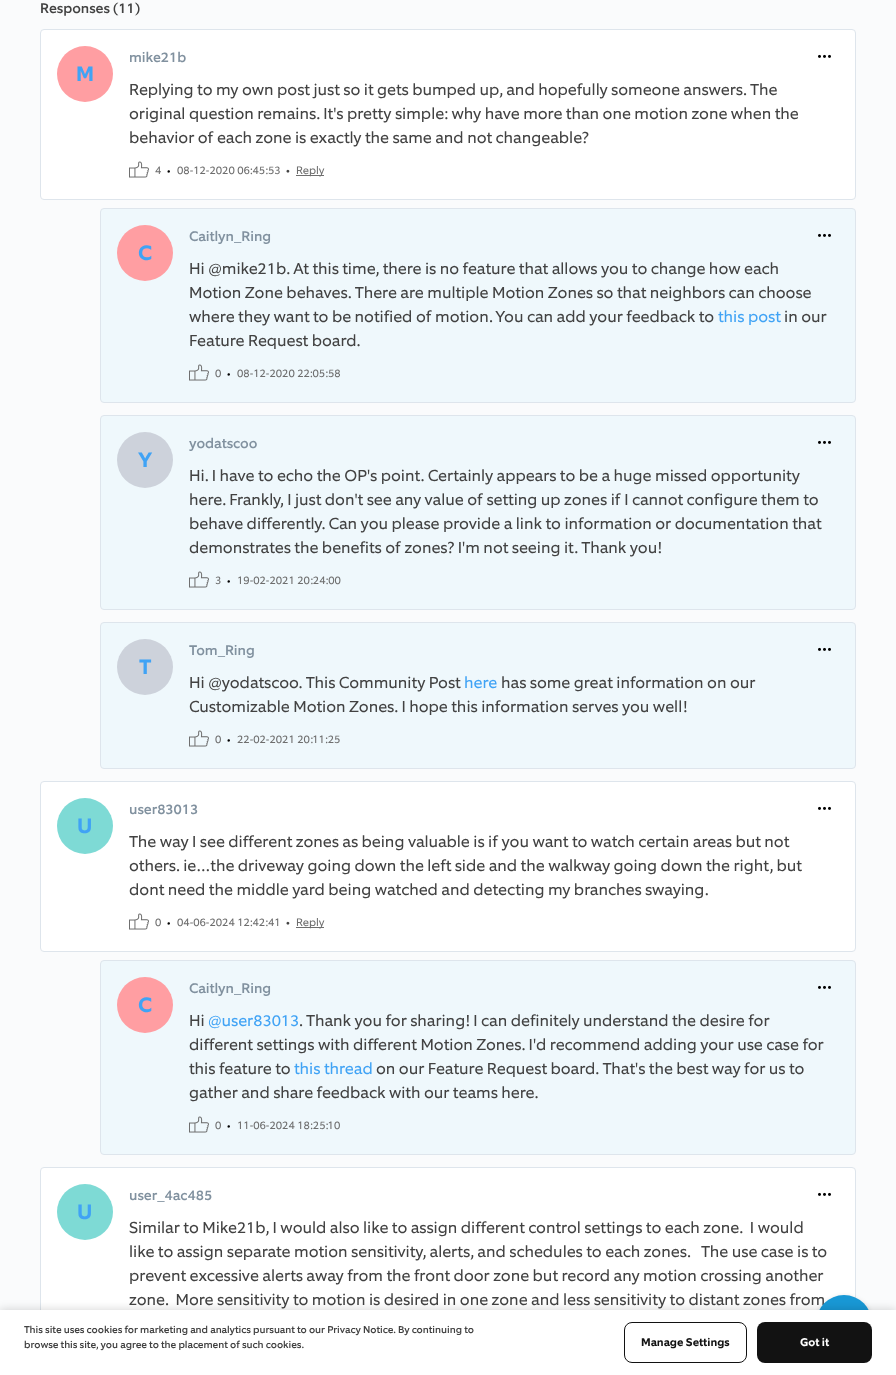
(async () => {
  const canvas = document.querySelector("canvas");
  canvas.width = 896;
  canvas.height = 1375;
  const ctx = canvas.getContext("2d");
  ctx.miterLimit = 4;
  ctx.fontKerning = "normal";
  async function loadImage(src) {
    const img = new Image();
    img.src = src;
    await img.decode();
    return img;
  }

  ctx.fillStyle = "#fafbfc";
  ctx.fillRect(0, 0, 896, 1375);
  ctx.fillStyle = "#ffffff";
  ctx.beginPath();
  ctx.roundRect(40.5, 29.5, 815, 170, 3.5);
  ctx.fill();
  ctx.strokeStyle = "#dee5ec";
  ctx.stroke();
  ctx.fillStyle = "#ff9ea2";
  ctx.beginPath();
  ctx.arc(85, 74, 28, 0, Math.PI * 2);
  ctx.fill();
  ctx.drawImage(await loadImage("img/1.png"), 818, 54, 13, 4);
  ctx.drawImage(await loadImage("img/2.png"), 129, 161, 20, 17);
  ctx.fillStyle = "#6e6e6e";
  ctx.fillRect(296, 175, 28, 1);
  ctx.fillStyle = "#eff8fc";
  ctx.beginPath();
  ctx.roundRect(100.5, 208.5, 755, 194, 3.5);
  ctx.fill();
  ctx.stroke();
  ctx.fillStyle = "#ff9ea2";
  ctx.beginPath();
  ctx.arc(145, 253, 28, 0, Math.PI * 2);
  ctx.fill();
  ctx.drawImage(await loadImage("img/3.png"), 818, 233, 13, 4);
  ctx.drawImage(await loadImage("img/4.png"), 189, 364, 20, 17);
  ctx.fillStyle = "#eff8fc";
  ctx.beginPath();
  ctx.roundRect(100.5, 415.5, 755, 194, 3.5);
  ctx.fill();
  ctx.stroke();
  ctx.fillStyle = "#cdd2db";
  ctx.beginPath();
  ctx.arc(145, 460, 28, 0, Math.PI * 2);
  ctx.fill();
  ctx.drawImage(await loadImage("img/3.png"), 818, 440, 13, 4);
  ctx.drawImage(await loadImage("img/4.png"), 189, 571, 20, 17);
  ctx.fillStyle = "#eff8fc";
  ctx.beginPath();
  ctx.roundRect(100.5, 622.5, 755, 146, 3.5);
  ctx.fill();
  ctx.stroke();
  ctx.fillStyle = "#cdd2db";
  ctx.beginPath();
  ctx.arc(145, 667, 28, 0, Math.PI * 2);
  ctx.fill();
  ctx.drawImage(await loadImage("img/3.png"), 818, 647, 13, 4);
  ctx.drawImage(await loadImage("img/4.png"), 189, 730, 20, 17);
  ctx.fillStyle = "#ffffff";
  ctx.beginPath();
  ctx.roundRect(40.5, 781.5, 815, 170, 3.5);
  ctx.fill();
  ctx.stroke();
  ctx.fillStyle = "#7edad5";
  ctx.beginPath();
  ctx.arc(85, 826, 28, 0, Math.PI * 2);
  ctx.fill();
  ctx.drawImage(await loadImage("img/1.png"), 818, 806, 13, 4);
  ctx.drawImage(await loadImage("img/2.png"), 129, 913, 20, 17);
  ctx.fillStyle = "#6e6e6e";
  ctx.fillRect(296, 927, 28, 1);
  ctx.fillStyle = "#eff8fc";
  ctx.beginPath();
  ctx.roundRect(100.5, 960.5, 755, 194, 3.5);
  ctx.fill();
  ctx.stroke();
  ctx.fillStyle = "#ff9ea2";
  ctx.beginPath();
  ctx.arc(145, 1005, 28, 0, Math.PI * 2);
  ctx.fill();
  ctx.drawImage(await loadImage("img/3.png"), 818, 985, 13, 4);
  ctx.drawImage(await loadImage("img/4.png"), 189, 1116, 20, 17);
  ctx.fillStyle = "#ffffff";
  ctx.beginPath();
  ctx.roundRect(40.5, 1167.5, 815, 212, 3.5);
  ctx.fill();
  ctx.stroke();
  ctx.fillStyle = "#7edad5";
  ctx.beginPath();
  ctx.arc(85, 1212, 28, 0, Math.PI * 2);
  ctx.fill();
  ctx.drawImage(await loadImage("img/1.png"), 818, 1192, 13, 4);
  ctx.fillStyle = "rgba(0, 0, 0, 0.2)";
  ctx.filter = "blur(2.5px)";
  ctx.beginPath();
  ctx.roundRect(816, 1297, 56, 56, 28);
  ctx.fill();
  ctx.filter = "none";
  ctx.font = "500 14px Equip";
  ctx.fillStyle = "#424242";
  ctx.fillText("Responses (11)", 40, 13);
  ctx.font = "bold 21px Equip";
  ctx.fillStyle = "#40a3f5";
  ctx.fillText("M", 76, 81);
  ctx.font = "500 14px Equip";
  ctx.fillStyle = "#81919f";
  ctx.fillText("mike21b", 129, 62);
  ctx.font = "16px Equip";
  ctx.fillStyle = "#424242";
  for (const [text, x, y] of [
    ["Replying to my own post just so it gets bumped up, and hopefully someone answers. The", 129, 95],
    ["original question remains. It's pretty simple: why have more than one motion zone when the", 129, 119],
    ["behavior of each zone is exactly the same and not changeable?", 129, 143],
  ]) {
    ctx.fillText(text, x, y);
  }
  ctx.font = "11px Equip";
  ctx.fillStyle = "#6e6e6e";
  ctx.fillText("4", 155, 174);
  ctx.font = "10px Equip";
  ctx.fillStyle = "#000000";
  ctx.fillText("•", 167, 174);
  ctx.font = "11px Equip";
  ctx.fillStyle = "#6e6e6e";
  ctx.fillText("08-12-2020 06:45:53", 177, 174);
  ctx.fillStyle = "#424242";
  ctx.fillText("•", 286, 174);
  ctx.fillStyle = "#6e6e6e";
  ctx.fillText("Reply", 296, 174);
  ctx.font = "bold 21px Equip";
  ctx.fillStyle = "#40a3f5";
  ctx.fillText("C", 138, 260);
  ctx.font = "500 14px Equip";
  ctx.fillStyle = "#81919f";
  ctx.fillText("Caitlyn_Ring", 189, 241);
  ctx.font = "16px Equip";
  ctx.fillStyle = "#424242";
  for (const [text, x, y] of [
    ["Hi @mike21b. At this time, there is no feature that allows you to change how each", 189, 274],
    ["Motion Zone behaves. There are multiple Motion Zones so that neighbors can choose", 189, 298],
    ["where they want to be notified of motion. You can add your feedback to", 189, 322],
  ]) {
    ctx.fillText(text, x, y);
  }
  ctx.fillStyle = "#40a3f5";
  ctx.fillText("this post", 718, 322);
  ctx.fillStyle = "#424242";
  ctx.fillText("in our", 784, 322);
  ctx.fillText("Feature Request board.", 189, 346);
  ctx.font = "11px Equip";
  ctx.fillStyle = "#6e6e6e";
  ctx.fillText("0", 215, 377);
  ctx.font = "10px Equip";
  ctx.fillStyle = "#000000";
  ctx.fillText("•", 227, 377);
  ctx.font = "11px Equip";
  ctx.fillStyle = "#6e6e6e";
  ctx.fillText("08-12-2020 22:05:58", 237, 377);
  ctx.font = "bold 21px Equip";
  ctx.fillStyle = "#40a3f5";
  ctx.fillText("Y", 138, 467);
  ctx.font = "500 14px Equip";
  ctx.fillStyle = "#81919f";
  ctx.fillText("yodatscoo", 189, 448);
  ctx.font = "16px Equip";
  ctx.fillStyle = "#424242";
  for (const [text, x, y] of [
    ["Hi. I have to echo the OP's point. Certainly appears to be a huge missed opportunity", 189, 481],
    ["here. Frankly, I just don't see any value of setting up zones if I cannot configure them to", 189, 505],
    ["behave differently. Can you please provide a link to information or documentation that", 189, 529],
    ["demonstrates the benefits of zones? I'm not seeing it. Thank you!", 189, 553],
  ]) {
    ctx.fillText(text, x, y);
  }
  ctx.font = "11px Equip";
  ctx.fillStyle = "#6e6e6e";
  ctx.fillText("3", 215, 584);
  ctx.font = "10px Equip";
  ctx.fillStyle = "#000000";
  ctx.fillText("•", 227, 584);
  ctx.font = "11px Equip";
  ctx.fillStyle = "#6e6e6e";
  ctx.fillText("19-02-2021 20:24:00", 237, 584);
  ctx.font = "bold 21px Equip";
  ctx.fillStyle = "#40a3f5";
  ctx.fillText("T", 139, 674);
  ctx.font = "500 14px Equip";
  ctx.fillStyle = "#81919f";
  ctx.fillText("Tom_Ring", 189, 655);
  ctx.font = "16px Equip";
  ctx.fillStyle = "#424242";
  ctx.fillText("Hi @yodatscoo. This Community Post", 189, 688);
  ctx.fillStyle = "#40a3f5";
  ctx.fillText("here", 464, 688);
  ctx.fillStyle = "#424242";
  ctx.fillText("has some great information on our", 501, 688);
  ctx.fillText("Customizable Motion Zones. I hope this information serves you well!", 189, 712);
  ctx.font = "11px Equip";
  ctx.fillStyle = "#6e6e6e";
  ctx.fillText("0", 215, 743);
  ctx.font = "10px Equip";
  ctx.fillStyle = "#000000";
  ctx.fillText("•", 227, 743);
  ctx.font = "11px Equip";
  ctx.fillStyle = "#6e6e6e";
  ctx.fillText("22-02-2021 20:11:25", 237, 743);
  ctx.font = "bold 21px Equip";
  ctx.fillStyle = "#40a3f5";
  ctx.fillText("U", 77, 833);
  ctx.font = "500 14px Equip";
  ctx.fillStyle = "#81919f";
  ctx.fillText("user83013", 129, 814);
  ctx.font = "16px Equip";
  ctx.fillStyle = "#424242";
  for (const [text, x, y] of [
    ["The way I see different zones as being valuable is if you want to watch certain areas but not", 129, 847],
    ["others. ie…the driveway going down the left side and the walkway going down the right, but", 129, 871],
    ["dont need the middle yard being watched and detecting my branches swaying.", 129, 895],
  ]) {
    ctx.fillText(text, x, y);
  }
  ctx.font = "11px Equip";
  ctx.fillStyle = "#6e6e6e";
  ctx.fillText("0", 155, 926);
  ctx.font = "10px Equip";
  ctx.fillStyle = "#000000";
  ctx.fillText("•", 167, 926);
  ctx.font = "11px Equip";
  ctx.fillStyle = "#6e6e6e";
  ctx.fillText("04-06-2024 12:42:41", 177, 926);
  ctx.fillStyle = "#424242";
  ctx.fillText("•", 286, 926);
  ctx.fillStyle = "#6e6e6e";
  ctx.fillText("Reply", 296, 926);
  ctx.font = "bold 21px Equip";
  ctx.fillStyle = "#40a3f5";
  ctx.fillText("C", 138, 1012);
  ctx.font = "500 14px Equip";
  ctx.fillStyle = "#81919f";
  ctx.fillText("Caitlyn_Ring", 189, 993);
  ctx.font = "16px Equip";
  ctx.fillStyle = "#424242";
  ctx.fillText("Hi", 189, 1026);
  ctx.fillStyle = "#40a3f5";
  ctx.fillText("@user83013", 208, 1026);
  ctx.fillStyle = "#424242";
  for (const [text, x, y] of [
    [". Thank you for sharing! I can definitely understand the desire for", 299, 1026],
    ["different settings with different Motion Zones. I'd recommend adding your use case for", 189, 1050],
    ["this feature to", 189, 1074],
  ]) {
    ctx.fillText(text, x, y);
  }
  ctx.fillStyle = "#40a3f5";
  ctx.fillText("this thread", 294, 1074);
  ctx.fillStyle = "#424242";
  ctx.fillText("on our Feature Request board. That's the best way for us to", 376, 1074);
  ctx.fillText("gather and share feedback with our teams here.", 189, 1098);
  ctx.font = "11px Equip";
  ctx.fillStyle = "#6e6e6e";
  ctx.fillText("0", 215, 1129);
  ctx.font = "10px Equip";
  ctx.fillStyle = "#000000";
  ctx.fillText("•", 227, 1129);
  ctx.font = "11px Equip";
  ctx.fillStyle = "#6e6e6e";
  ctx.fillText("11-06-2024 18:25:10", 237, 1129);
  ctx.font = "bold 21px Equip";
  ctx.fillStyle = "#40a3f5";
  ctx.fillText("U", 77, 1219);
  ctx.font = "500 14px Equip";
  ctx.fillStyle = "#81919f";
  ctx.fillText("user_4ac485", 129, 1200);
  ctx.font = "16px Equip";
  ctx.fillStyle = "#424242";
  for (const [text, x, y] of [
    ["Similar to Mike21b, I would also like to assign different control settings to each zone.  I would", 129, 1233],
    ["like to assign separate motion sensitivity, alerts, and schedules to each zones.   The use case is to", 129, 1257],
    ["prevent excessive alerts away from the front door zone but record any motion crossing another", 129, 1281],
    ["zone.  More sensitivity to motion is desired in one zone and less sensitivity to distant zones from", 129, 1305],
  ]) {
    ctx.fillText(text, x, y);
  }
  ctx.fillStyle = "#1998d5";
  ctx.beginPath();
  ctx.arc(844, 1323, 28, 0, Math.PI * 2);
  ctx.fill();
  ctx.fillStyle = "rgba(0, 0, 0, 0.15)";
  ctx.filter = "blur(4px)";
  ctx.beginPath();
  ctx.rect(0, 1309, 896, 65);
  ctx.fill();
  ctx.filter = "none";
  ctx.fillStyle = "#ffffff";
  ctx.fillRect(0, 1310, 896, 65);
  ctx.font = "500 10px Equip";
  ctx.fillStyle = "#424242";
  ctx.fillText("This site uses cookies for marketing and analytics pursuant to our Privacy Notice. By continuing to", 24, 1333);
  ctx.fillText("browse this site, you agree to the placement of such cookies.", 24, 1348);
  ctx.beginPath();
  ctx.roundRect(624.5, 1322.5, 122, 40, 7.5);
  ctx.strokeStyle = "#121212";
  ctx.stroke();
  ctx.font = "bold 11.25px Equip";
  ctx.fillStyle = "#121212";
  ctx.fillText("Manage Settings", 641, 1346);
  ctx.beginPath();
  ctx.roundRect(757, 1322, 115, 41, 8);
  ctx.fill();
  ctx.fillStyle = "#ffffff";
  ctx.fillText("Got it", 800, 1346);
})();
